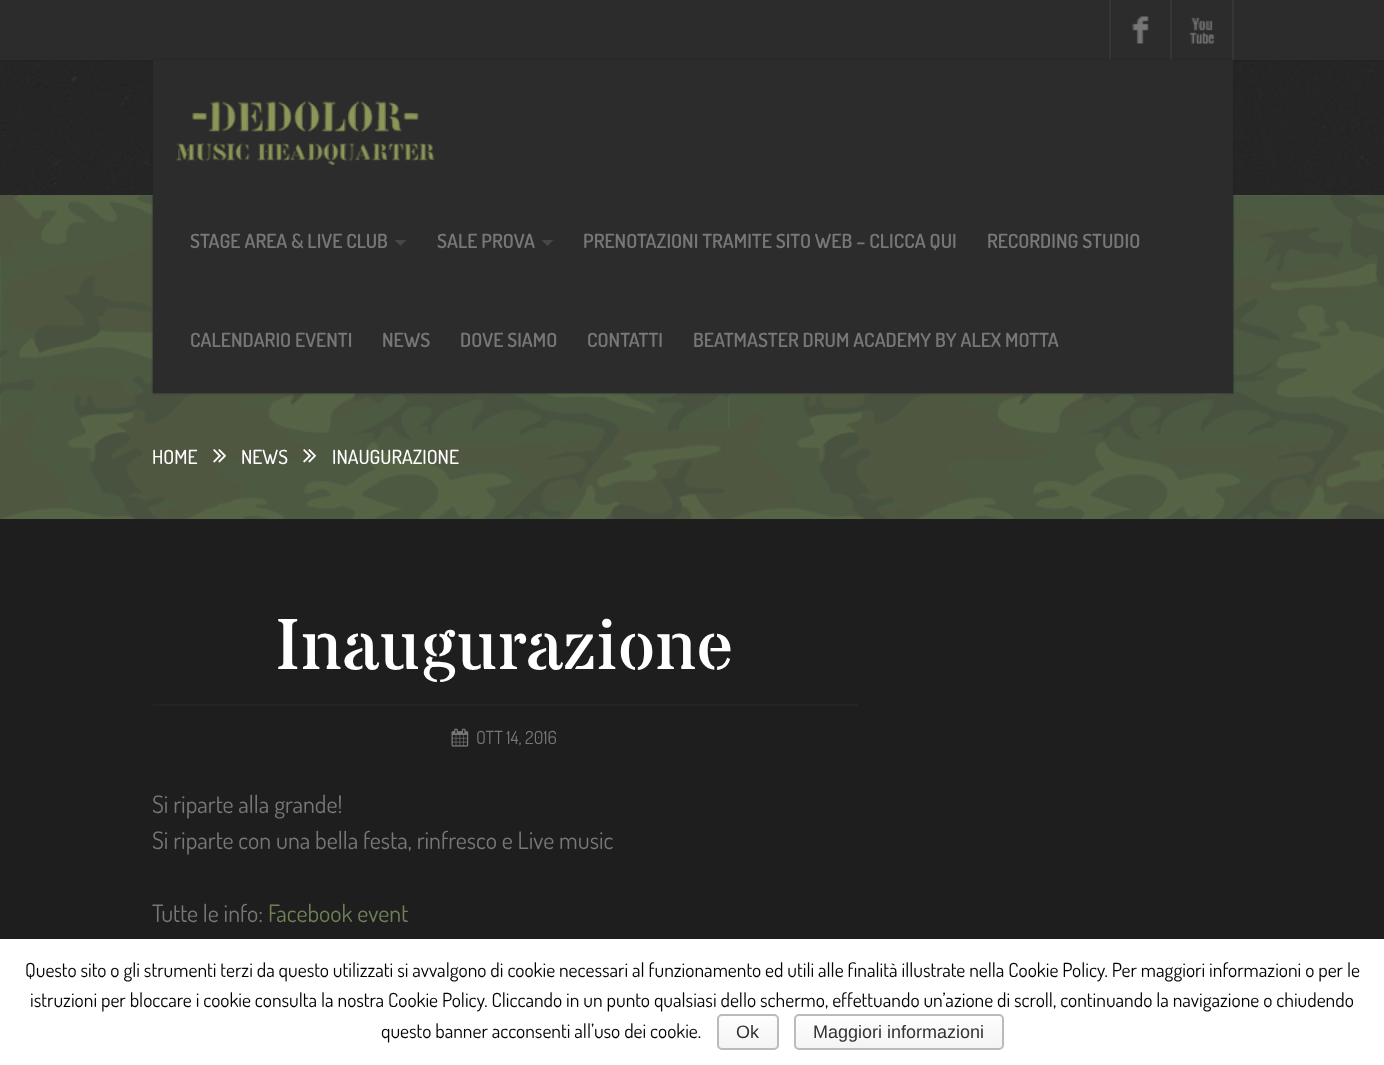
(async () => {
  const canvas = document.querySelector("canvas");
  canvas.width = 1384;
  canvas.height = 1065;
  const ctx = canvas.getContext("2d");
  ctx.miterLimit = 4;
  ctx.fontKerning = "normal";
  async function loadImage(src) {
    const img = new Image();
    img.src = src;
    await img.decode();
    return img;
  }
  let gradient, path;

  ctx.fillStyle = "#ffffff";
  ctx.fillRect(0, 0, 1384, 1065);
  ctx.drawImage(await loadImage("img/1.png"), 0, 60, 1384, 135);
  ctx.drawImage(await loadImage("img/2.png"), 0, 195, 1384, 324);
  ctx.fillStyle = "rgba(81, 93, 69, 0.85)";
  ctx.fillRect(0, 195, 1384, 324);
  ctx.fillStyle = "#202020";
  ctx.filter = "blur(1px)";
  ctx.beginPath();
  ctx.rect(0, 0, 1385, 60);
  ctx.fill();
  ctx.filter = "none";
  for (const [x, y, w, h, color] of [
    [0, 0, 1384, 60, "#2c2c2c"],
    [1170, 0, 2, 60, "#363636"],
    [1109, 0, 2, 60, "#363636"],
  ]) {
    ctx.fillStyle = color;
    ctx.fillRect(x, y, w, h);
  }
  ctx.drawImage(await loadImage("img/3.png"), 1132, 16, 17, 28);
  ctx.fillRect(1232, 0, 2, 60);
  ctx.drawImage(await loadImage("img/4.png"), 1189, 17, 26, 27);
  ctx.fillStyle = "#202020";
  ctx.filter = "blur(1px)";
  ctx.beginPath();
  ctx.rect(153, 60, 1080, 333);
  ctx.fill();
  ctx.filter = "none";
  ctx.fillStyle = "#2c2c2c";
  ctx.fillRect(153, 60, 1080, 333);
  ctx.drawImage(await loadImage("img/5.png"), 175, 101, 260, 64);
  ctx.fillStyle = "#474747";
  path = new Path2D("M394.5 240H406.5L400.5 246Z");
  ctx.fill(path);
  path = new Path2D("M541.5 240H553.5L547.5 246Z");
  ctx.fill(path);
  ctx.drawImage(await loadImage("img/6.png"), 213, 449, 14, 14);
  ctx.drawImage(await loadImage("img/7.png"), 303, 449, 14, 14);
  ctx.fillStyle = "#1e1e1e";
  ctx.fillRect(0, 519, 1384, 420);
  ctx.fillStyle = "#242424";
  ctx.fillRect(153, 704, 705, 2);
  ctx.drawImage(await loadImage("img/8.png"), 451, 728, 18, 19);
  ctx.save();
  ctx.beginPath();
  ctx.roundRect(717, 1014, 62, 36, 5);
  ctx.clip();
  gradient = ctx.createLinearGradient(748, 1016, 748, 1049);
  gradient.addColorStop(0, "#fefefe");
  gradient.addColorStop(1, "#f4f4f4");
  ctx.fillStyle = gradient;
  ctx.fillRect(717, 1016, 62, 33);
  ctx.restore();
  ctx.beginPath();
  ctx.roundRect(718, 1015, 60, 34, 4);
  ctx.strokeStyle = "#bbbbbb";
  ctx.lineWidth = 2;
  ctx.stroke();
  ctx.save();
  ctx.beginPath();
  ctx.roundRect(794, 1014, 210, 36, 5);
  ctx.clip();
  gradient = ctx.createLinearGradient(899, 1016, 899, 1049);
  gradient.addColorStop(0, "#fefefe");
  gradient.addColorStop(1, "#f4f4f4");
  ctx.fillStyle = gradient;
  ctx.fillRect(794, 1016, 210, 33);
  ctx.restore();
  ctx.beginPath();
  ctx.roundRect(795, 1015, 208, 34, 4);
  ctx.stroke();
  ctx.font = "600 19.5px Dosis";
  ctx.fillStyle = "#777777";
  for (const [text, x, y] of [
    ["STAGE AREA & LIVE CLUB", 190, 248],
    ["SALE PROVA", 437, 248],
    ["PRENOTAZIONI TRAMITE SITO WEB – CLICCA QUI", 583, 248],
    ["RECORDING STUDIO", 987, 248],
    ["CALENDARIO EVENTI", 190, 347],
    ["NEWS", 382, 347],
    ["DOVE SIAMO", 460, 347],
    ["CONTATTI", 587, 347],
    ["BEATMASTER DRUM ACADEMY BY ALEX MOTTA", 693, 347],
  ]) {
    ctx.fillText(text, x, y);
  }
  ctx.font = "500 19.5px Dosis";
  ctx.fillStyle = "#ffffff";
  for (const [text, x, y] of [
    ["HOME", 152, 464],
    ["NEWS", 241, 464],
    ["INAUGURAZIONE", 332, 464],
  ]) {
    ctx.fillText(text, x, y);
  }
  ctx.font = "72px Stardos Stencil";
  ctx.fillText("Inaugurazione", 275, 669);
  ctx.font = "18px Dosis";
  ctx.fillStyle = "#777777";
  ctx.fillText("OTT 14, 2016", 476, 744);
  ctx.font = "24px Dosis";
  for (const [text, x, y] of [
    ["Si riparte alla grande!", 152, 813],
    ["Si riparte con una bella festa, rinfresco e Live music", 152, 849],
    ["Tutte le info:", 152, 922],
  ]) {
    ctx.fillText(text, x, y);
  }
  ctx.fillStyle = "#6f8057";
  ctx.fillText("Facebook event", 268, 922);
  ctx.font = "19.5px Dosis";
  ctx.fillStyle = "#000000";
  for (const [text, x, y] of [
    ["Questo sito o gli strumenti terzi da questo utilizzati si avvalgono di cookie necessari al funzionamento ed utili alle finalità illustrate nella Cookie Policy. Per maggiori informazioni o per le", 25, 977],
    ["istruzioni per bloccare i cookie consulta la nostra Cookie Policy. Cliccando in un punto qualsiasi dello schermo, effettuando un’azione di scroll, continuando la navigazione o chiudendo", 30, 1007],
    ["questo banner acconsenti all’uso dei cookie.", 381, 1038],
  ]) {
    ctx.fillText(text, x, y);
  }
  ctx.font = "18px Liberation Sans";
  ctx.fillStyle = "#333333";
  ctx.fillText("Ok", 736, 1038);
  ctx.fillText("Maggiori informazioni", 813, 1038);
})();
